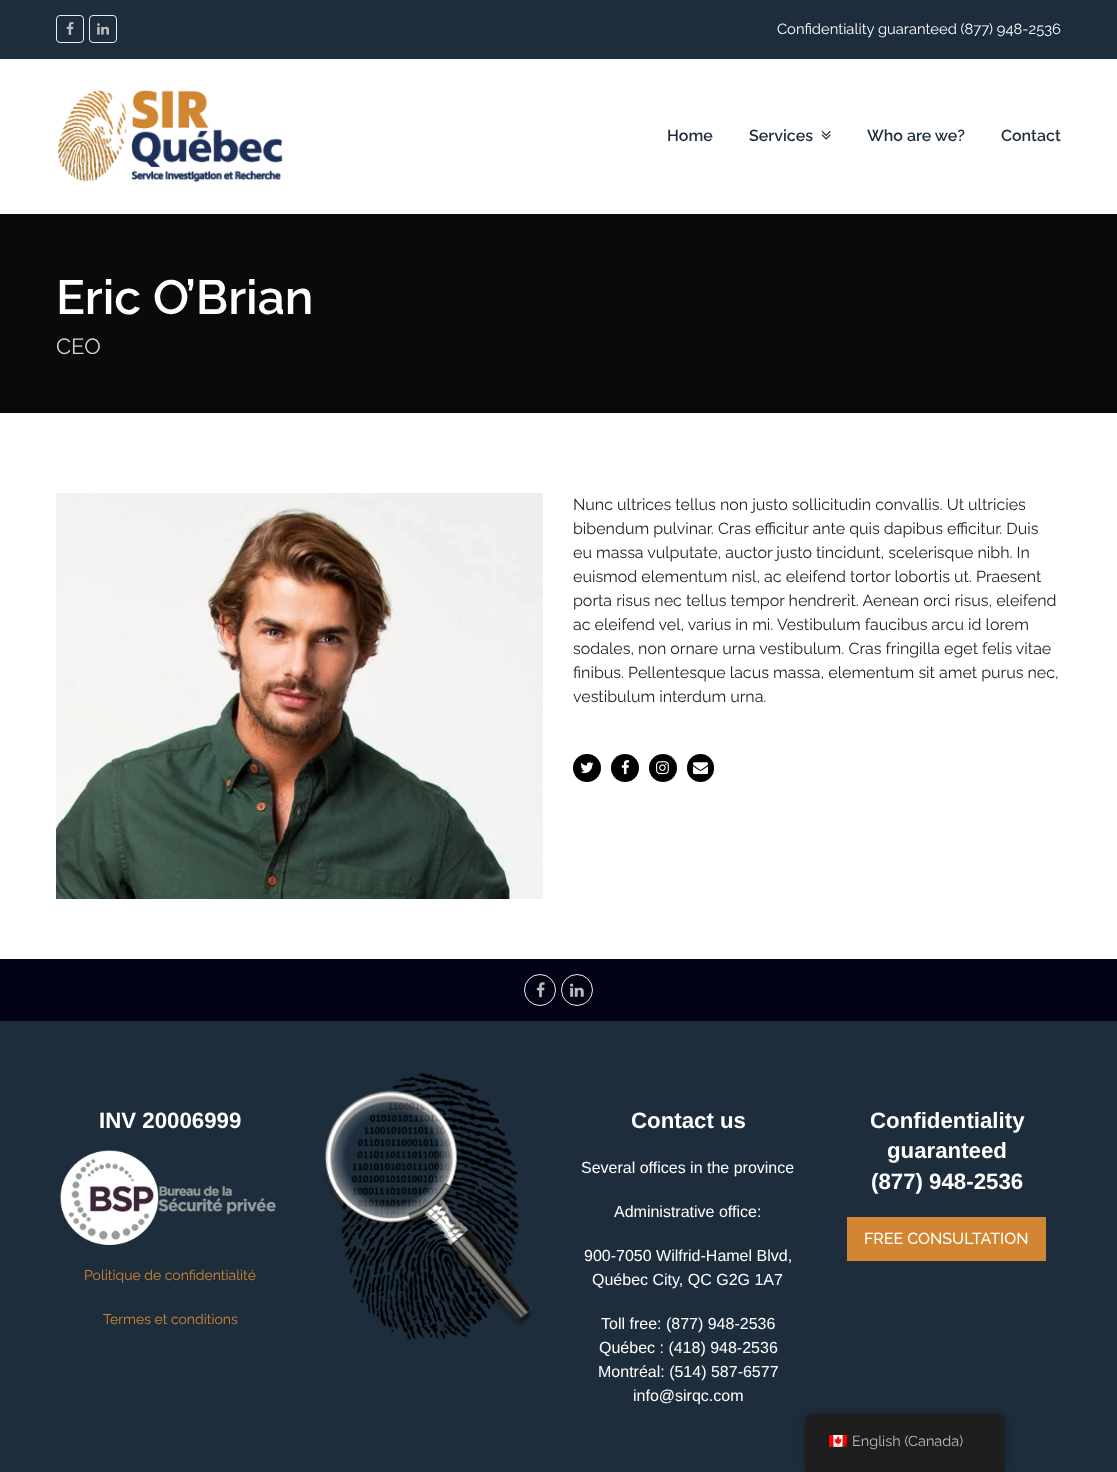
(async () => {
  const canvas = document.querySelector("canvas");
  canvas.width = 1117;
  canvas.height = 1472;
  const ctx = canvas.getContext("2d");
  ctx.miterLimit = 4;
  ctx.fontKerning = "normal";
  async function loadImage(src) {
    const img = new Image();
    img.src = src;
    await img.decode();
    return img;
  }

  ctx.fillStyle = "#ffffff";
  ctx.fillRect(0, 0, 1117, 1472);
  ctx.fillStyle = "#1d2d3b";
  ctx.fillRect(0, 0, 1117, 59);
  ctx.beginPath();
  ctx.roundRect(56.5, 15.5, 27, 27, 3.5);
  ctx.strokeStyle = "#eeeeee";
  ctx.stroke();
  ctx.drawImage(await loadImage("img/1.png"), 66, 22, 8, 13);
  ctx.beginPath();
  ctx.roundRect(89.5, 15.5, 27, 27, 3.5);
  ctx.stroke();
  ctx.drawImage(await loadImage("img/2.png"), 97, 23, 12, 12);
  ctx.drawImage(await loadImage("img/3.png"), 57, 90, 226, 93);
  ctx.drawImage(await loadImage("img/4.png"), 821, 131, 10, 9);
  ctx.fillStyle = "#0a0a0a";
  ctx.fillRect(0, 214, 1117, 199);
  ctx.drawImage(await loadImage("img/5.png"), 56, 493, 487, 406);
  ctx.fillStyle = "#000000";
  ctx.beginPath();
  ctx.arc(587, 768, 14, 0, Math.PI * 2);
  ctx.fill();
  ctx.drawImage(await loadImage("img/6.png"), 580, 762, 14, 11);
  ctx.beginPath();
  ctx.arc(625, 768, 14, 0, Math.PI * 2);
  ctx.fill();
  ctx.drawImage(await loadImage("img/7.png"), 621, 760, 9, 15);
  ctx.beginPath();
  ctx.arc(663, 768, 14, 0, Math.PI * 2);
  ctx.fill();
  ctx.drawImage(await loadImage("img/8.png"), 656, 761, 13, 14);
  ctx.beginPath();
  ctx.roundRect(687, 754, 27, 28, 13.5);
  ctx.fill();
  ctx.drawImage(await loadImage("img/9.png"), 693, 762, 15, 13);
  ctx.fillStyle = "#020314";
  ctx.fillRect(0, 959, 1117, 62);
  ctx.beginPath();
  ctx.arc(540, 990, 15.5, 0, Math.PI * 2);
  ctx.stroke();
  ctx.drawImage(await loadImage("img/10.png"), 536, 982, 9, 16);
  ctx.beginPath();
  ctx.arc(577, 990, 15.5, 0, Math.PI * 2);
  ctx.stroke();
  ctx.drawImage(await loadImage("img/11.png"), 570, 983, 14, 14);
  ctx.fillStyle = "#1d2d3b";
  ctx.fillRect(0, 1021, 1117, 451);
  ctx.drawImage(await loadImage("img/12.png"), 60, 1150, 216, 95);
  ctx.drawImage(await loadImage("img/13.png"), 324, 1073, 208, 267);
  ctx.fillStyle = "#d28632";
  ctx.fillRect(847, 1217, 199, 44);
  ctx.fillStyle = "rgba(0, 0, 0, 0.25)";
  ctx.filter = "blur(4px)";
  ctx.beginPath();
  ctx.roundRect(805, 1414, 200, 58, 8);
  ctx.fill();
  ctx.filter = "none";
  ctx.fillStyle = "#1e1e1e";
  ctx.beginPath();
  ctx.roundRect(805, 1414, 200, 58, [8, 8, 0, 0]);
  ctx.fill();
  ctx.drawImage(await loadImage("img/14.png"), 829, 1435, 18, 12);
  ctx.font = "14.75px Raleway";
  ctx.fillStyle = "#ffffff";
  ctx.fillText("Confidentiality guaranteed (877) 948-2536", 777, 34);
  ctx.font = "600 16px Raleway";
  ctx.fillStyle = "#1d2d3b";
  for (const [text, x, y] of [
    ["Home", 667, 141],
    ["Services", 749, 141],
    ["Who are we?", 867, 141],
    ["Contact", 1001, 141],
  ]) {
    ctx.fillText(text, x, y);
  }
  ctx.font = "600 48px Raleway";
  ctx.fillStyle = "#ffffff";
  ctx.fillText("Eric O’Brian", 56, 314);
  ctx.font = "22px Raleway";
  ctx.fillStyle = "#d3d3d3";
  ctx.fillText("CEO", 56, 354);
  ctx.font = "16px Raleway";
  ctx.fillStyle = "#222222";
  for (const [text, x, y] of [
    ["Nunc ultrices tellus non justo sollicitudin convallis. Ut ultricies", 573, 510],
    ["bibendum pulvinar. Cras efficitur ante quis dapibus efficitur. Duis", 573, 534],
    ["eu massa vulputate, auctor justo tincidunt, scelerisque nibh. In", 573, 558],
    ["euismod elementum nisl, ac eleifend tortor lobortis ut. Praesent", 573, 582],
    ["porta risus nec tellus tempor hendrerit. Aenean orci risus, eleifend", 573, 606],
    ["ac eleifend vel, varius in mi. Vestibulum faucibus arcu id lorem", 573, 630],
    ["sodales, non ornare urna vestibulum. Cras fringilla eget felis vitae", 573, 654],
    ["finibus. Pellentesque lacus massa, elementum sit amet purus nec,", 573, 678],
    ["vestibulum interdum urna.", 573, 702],
  ]) {
    ctx.fillText(text, x, y);
  }
  ctx.font = "bold 22.25px Liberation Sans";
  ctx.fillStyle = "#ffffff";
  ctx.fillText("INV 20006999", 99, 1128);
  ctx.font = "14px Raleway";
  ctx.fillStyle = "#d28632";
  ctx.fillText("Politique de confidentialité", 84, 1280);
  ctx.fillText("Termes et conditions", 103, 1324);
  ctx.font = "bold 22.25px Liberation Sans";
  ctx.fillStyle = "#ffffff";
  ctx.fillText("Contact us", 631, 1128);
  ctx.font = "16px Liberation Sans";
  for (const [text, x, y] of [
    ["Several offices in the province", 581, 1173],
    ["Administrative office:", 614, 1217],
    ["900-7050 Wilfrid-Hamel Blvd,", 584, 1261],
    ["Québec City, QC G2G 1A7", 592, 1285],
    ["Toll free: (877) 948-2536", 601, 1329],
    ["Québec : (418) 948-2536", 599, 1353],
    ["Montréal: (514) 587-6577", 598, 1377],
    ["info@sirqc.com", 633, 1401],
  ]) {
    ctx.fillText(text, x, y);
  }
  ctx.font = "bold 22.25px Liberation Sans";
  for (const [text, x, y] of [
    ["Confidentiality", 870, 1128],
    ["guaranteed", 887, 1158],
    ["(877) 948-2536", 871, 1189],
  ]) {
    ctx.fillText(text, x, y);
  }
  ctx.font = "500 16px Raleway";
  ctx.fillText("FREE CONSULTATION", 864, 1244);
  ctx.font = "14.5px Raleway";
  ctx.fillStyle = "#bdbdbd";
  ctx.fillText("English (Canada)", 852, 1446);
})();
